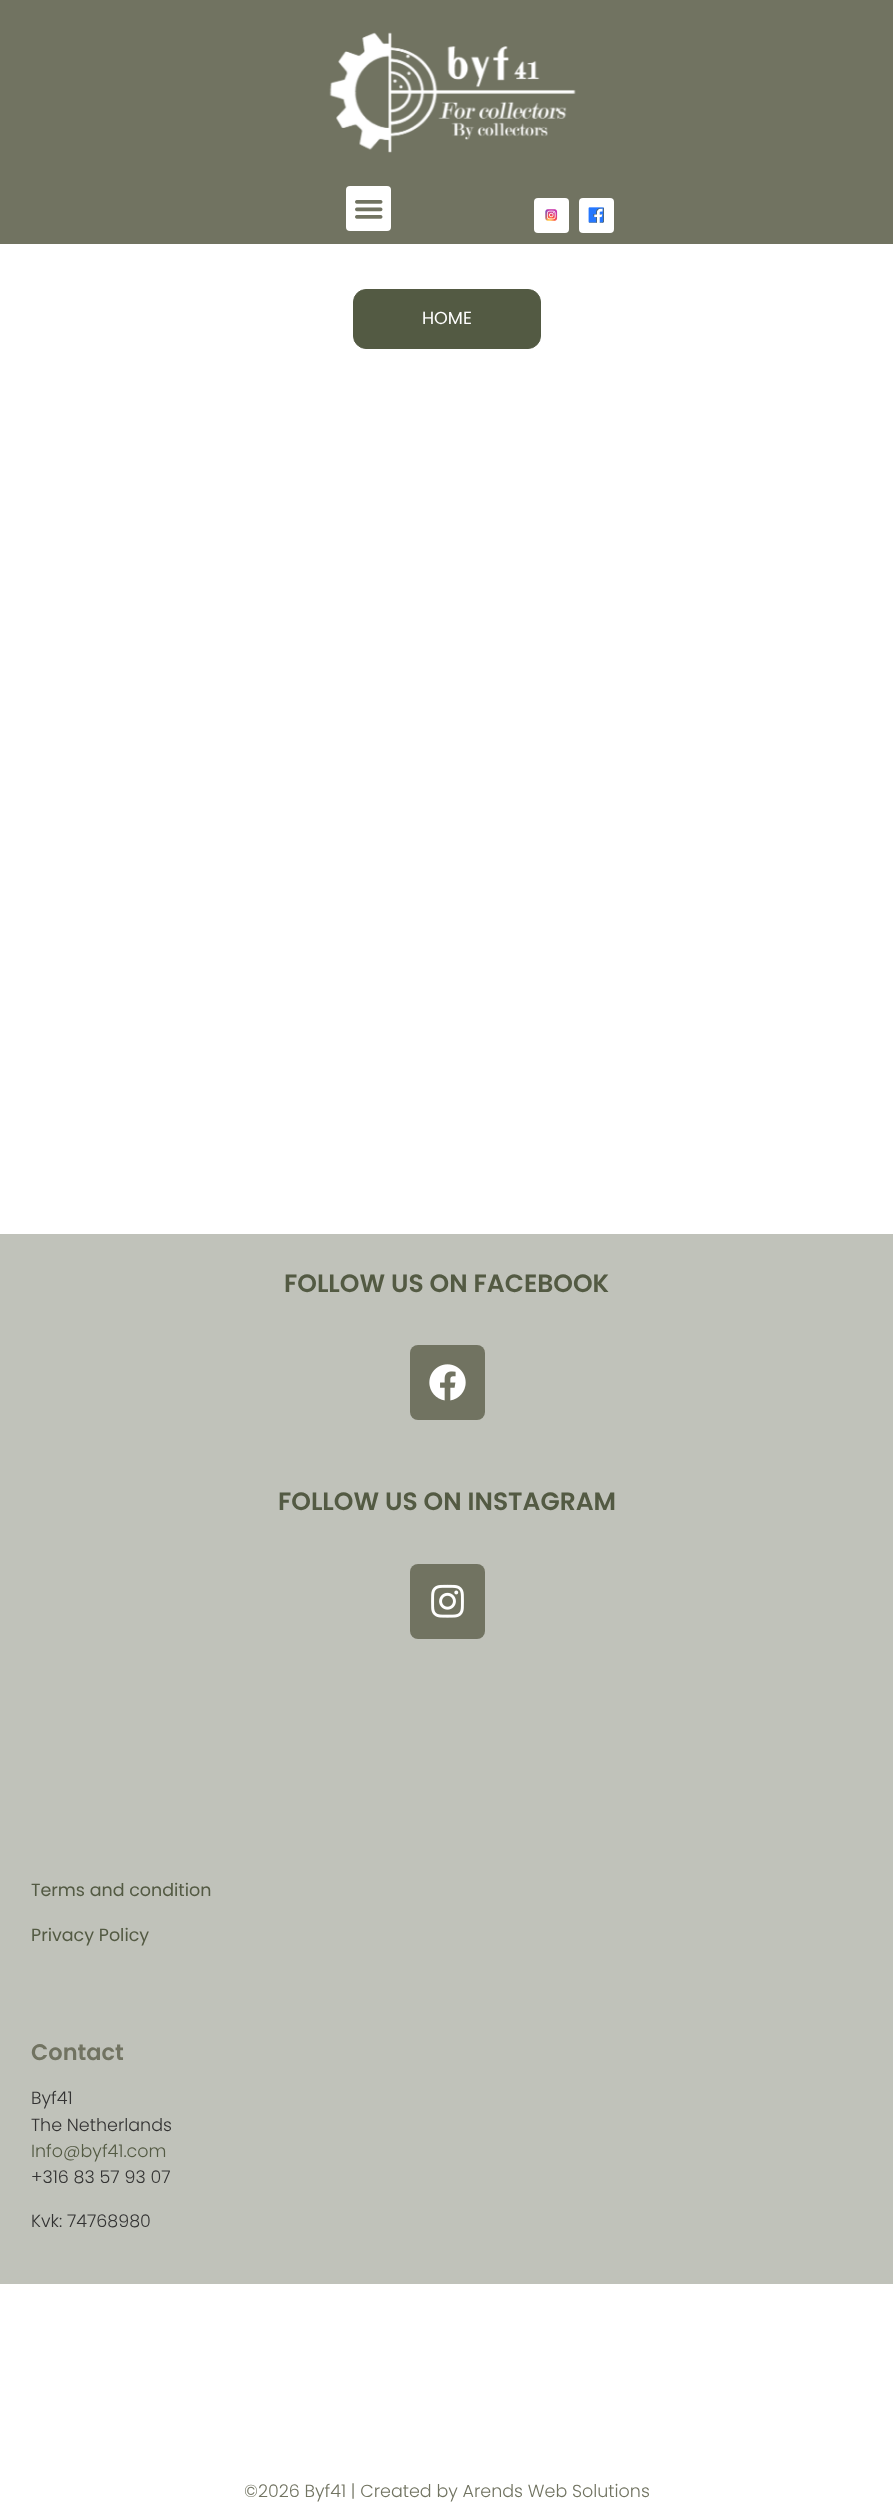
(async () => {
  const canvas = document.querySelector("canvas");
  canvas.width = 893;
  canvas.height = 2518;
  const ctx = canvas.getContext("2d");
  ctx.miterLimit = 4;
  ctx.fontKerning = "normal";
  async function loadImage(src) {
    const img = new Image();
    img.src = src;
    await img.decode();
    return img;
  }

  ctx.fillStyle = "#ffffff";
  ctx.fillRect(0, 0, 893, 2518);
  ctx.fillStyle = "#717361";
  ctx.fillRect(0, 0, 893, 244);
  ctx.drawImage(await loadImage("img/1.png"), 329, 32, 247, 121);
  ctx.fillStyle = "#ffffff";
  ctx.beginPath();
  ctx.roundRect(346, 186, 45, 45, 4);
  ctx.fill();
  ctx.drawImage(await loadImage("img/2.png"), 355, 200, 28, 19);
  ctx.beginPath();
  ctx.roundRect(534, 198, 35, 35, 4);
  ctx.fill();
  ctx.drawImage(await loadImage("img/3.png"), 545, 209, 13, 12);
  ctx.beginPath();
  ctx.roundRect(579, 198, 35, 35, 4);
  ctx.fill();
  ctx.drawImage(await loadImage("img/4.png"), 588, 207, 16, 16);
  ctx.fillStyle = "#535a43";
  ctx.beginPath();
  ctx.roundRect(353.5, 289.5, 187, 59, 12.5);
  ctx.fill();
  ctx.strokeStyle = "#535a43";
  ctx.stroke();
  ctx.fillStyle = "#c0c2ba";
  ctx.fillRect(0, 1234, 893, 1050);
  ctx.fillStyle = "#717361";
  ctx.beginPath();
  ctx.roundRect(410, 1345, 75, 75, 8);
  ctx.fill();
  ctx.drawImage(await loadImage("img/5.png"), 429, 1364, 37, 37);
  ctx.beginPath();
  ctx.roundRect(410, 1564, 75, 75, 8);
  ctx.fill();
  ctx.drawImage(await loadImage("img/6.png"), 431, 1584, 33, 34);
  ctx.font = "17.5px Poppins";
  ctx.fillStyle = "#ffffff";
  ctx.fillText("HOME", 422, 324);
  ctx.font = "600 25px Poppins";
  ctx.fillStyle = "#535a43";
  ctx.fillText("FOLLOW US ON FACEBOOK", 284, 1292);
  ctx.fillText("FOLLOW US ON INSTAGRAM", 278, 1510);
  ctx.font = "17.5px Poppins";
  ctx.fillText("Terms and condition", 31, 1896);
  ctx.fillText("Privacy Policy", 31, 1941);
  ctx.font = "600 22.5px Poppins";
  ctx.fillStyle = "#717361";
  ctx.fillText("Contact", 31, 2060);
  ctx.font = "300 17.5px Poppins";
  ctx.fillStyle = "#333333";
  ctx.fillText("Byf41", 31, 2104);
  ctx.fillText("The Netherlands", 31, 2131);
  ctx.fillStyle = "#535a43";
  ctx.fillText("Info@byf41.com", 31, 2157);
  ctx.fillStyle = "#333333";
  ctx.fillText("+316 83 57 93 07", 31, 2183);
  ctx.fillText("Kvk: 74768980", 31, 2227);
  ctx.fillStyle = "#717361";
  ctx.fillText("©2026 Byf41 | Created by Arends Web Solutions", 244, 2497);
})();
